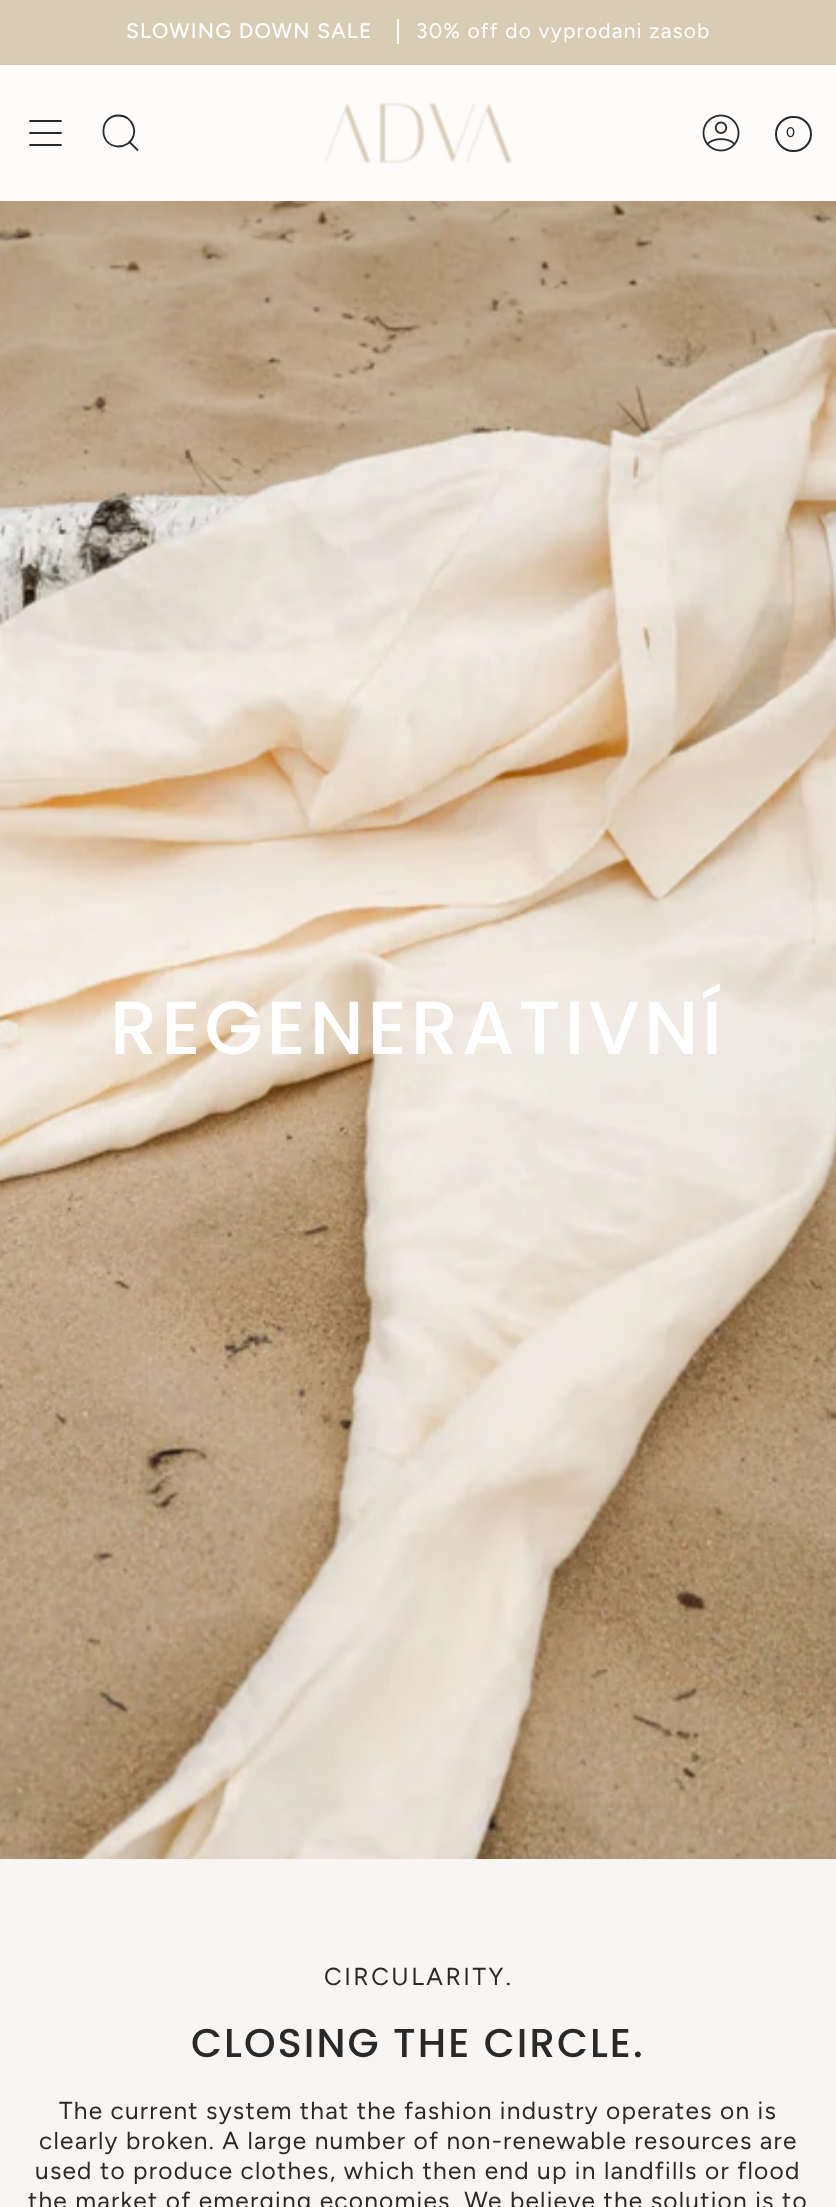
(async () => {
  const canvas = document.querySelector("canvas");
  canvas.width = 836;
  canvas.height = 2207;
  const ctx = canvas.getContext("2d");
  ctx.miterLimit = 4;
  ctx.fontKerning = "normal";
  async function loadImage(src) {
    const img = new Image();
    img.src = src;
    await img.decode();
    return img;
  }
  let path;

  ctx.fillStyle = "#fdfcfb";
  ctx.fillRect(0, 0, 836, 2207);
  ctx.fillStyle = "#d9ccb5";
  ctx.fillRect(0, 0, 836, 65);
  ctx.fillStyle = "#ffffff";
  ctx.fillRect(397, 19, 2, 25);
  path = new Path2D("M30 121H61M30 133H61M30 145H61");
  ctx.strokeStyle = "#292929";
  ctx.lineWidth = 1.8;
  ctx.lineCap = "round";
  ctx.lineJoin = "round";
  ctx.stroke(path);
  path = new Path2D("M118.5 115.5C133.5 115.5 140 134.5 128 143.5C125 145.5 121.5 146.5 118 146.5C98 145.5 99 115.5 118.5 115.5ZM129.5 142L138 150.5");
  ctx.lineCap = "butt";
  ctx.lineJoin = "miter";
  ctx.stroke(path);
  ctx.drawImage(await loadImage("img/1.png"), 324, 102, 189, 62);
  ctx.drawImage(await loadImage("img/2.png"), 702, 114, 38, 38);
  ctx.beginPath();
  ctx.roundRect(776, 117, 35, 34, 17);
  ctx.lineWidth = 2;
  ctx.stroke();
  ctx.drawImage(await loadImage("img/3.png"), 0, 201, 836, 1658);
  ctx.fillStyle = "#f9f5f2";
  ctx.fillRect(0, 1859, 836, 348);
  ctx.letterSpacing = "1.22px";
  ctx.font = "500 21px Figtree";
  ctx.fillStyle = "#ffffff";
  ctx.fillText("SLOWING DOWN SALE", 126, 38);
  ctx.font = "21px Figtree";
  ctx.fillText("30% off do vyprodani zasob", 416, 38);
  ctx.letterSpacing = "2px";
  ctx.font = "500 14px Figtree";
  ctx.fillStyle = "#292929";
  ctx.fillText("0", 786, 137);
  ctx.letterSpacing = "3.75px";
  ctx.font = "500 75.25px Poppins";
  ctx.fillStyle = "#ffffff";
  ctx.fillText("REGENERATIVNÍ", 110, 1054);
  ctx.letterSpacing = "2.5px";
  ctx.font = "24.5px Figtree";
  ctx.fillStyle = "#292929";
  ctx.fillText("CIRCULARITY.", 324, 1985);
  ctx.letterSpacing = "2px";
  ctx.font = "500 40.25px Poppins";
  ctx.fillText("CLOSING THE CIRCLE.", 191, 2057);
  ctx.letterSpacing = "1.22px";
  ctx.font = "24.5px Figtree";
  for (const [text, x, y] of [
    ["The current system that the fashion industry operates on is", 59, 2119],
    ["clearly broken. A large number of non-renewable resources are", 39, 2149],
    ["used to produce clothes, which then end up in landfills or flood", 35, 2179],
    ["the market of emerging economies. We believe the solution is to", 28, 2209],
  ]) {
    ctx.fillText(text, x, y);
  }
})();
